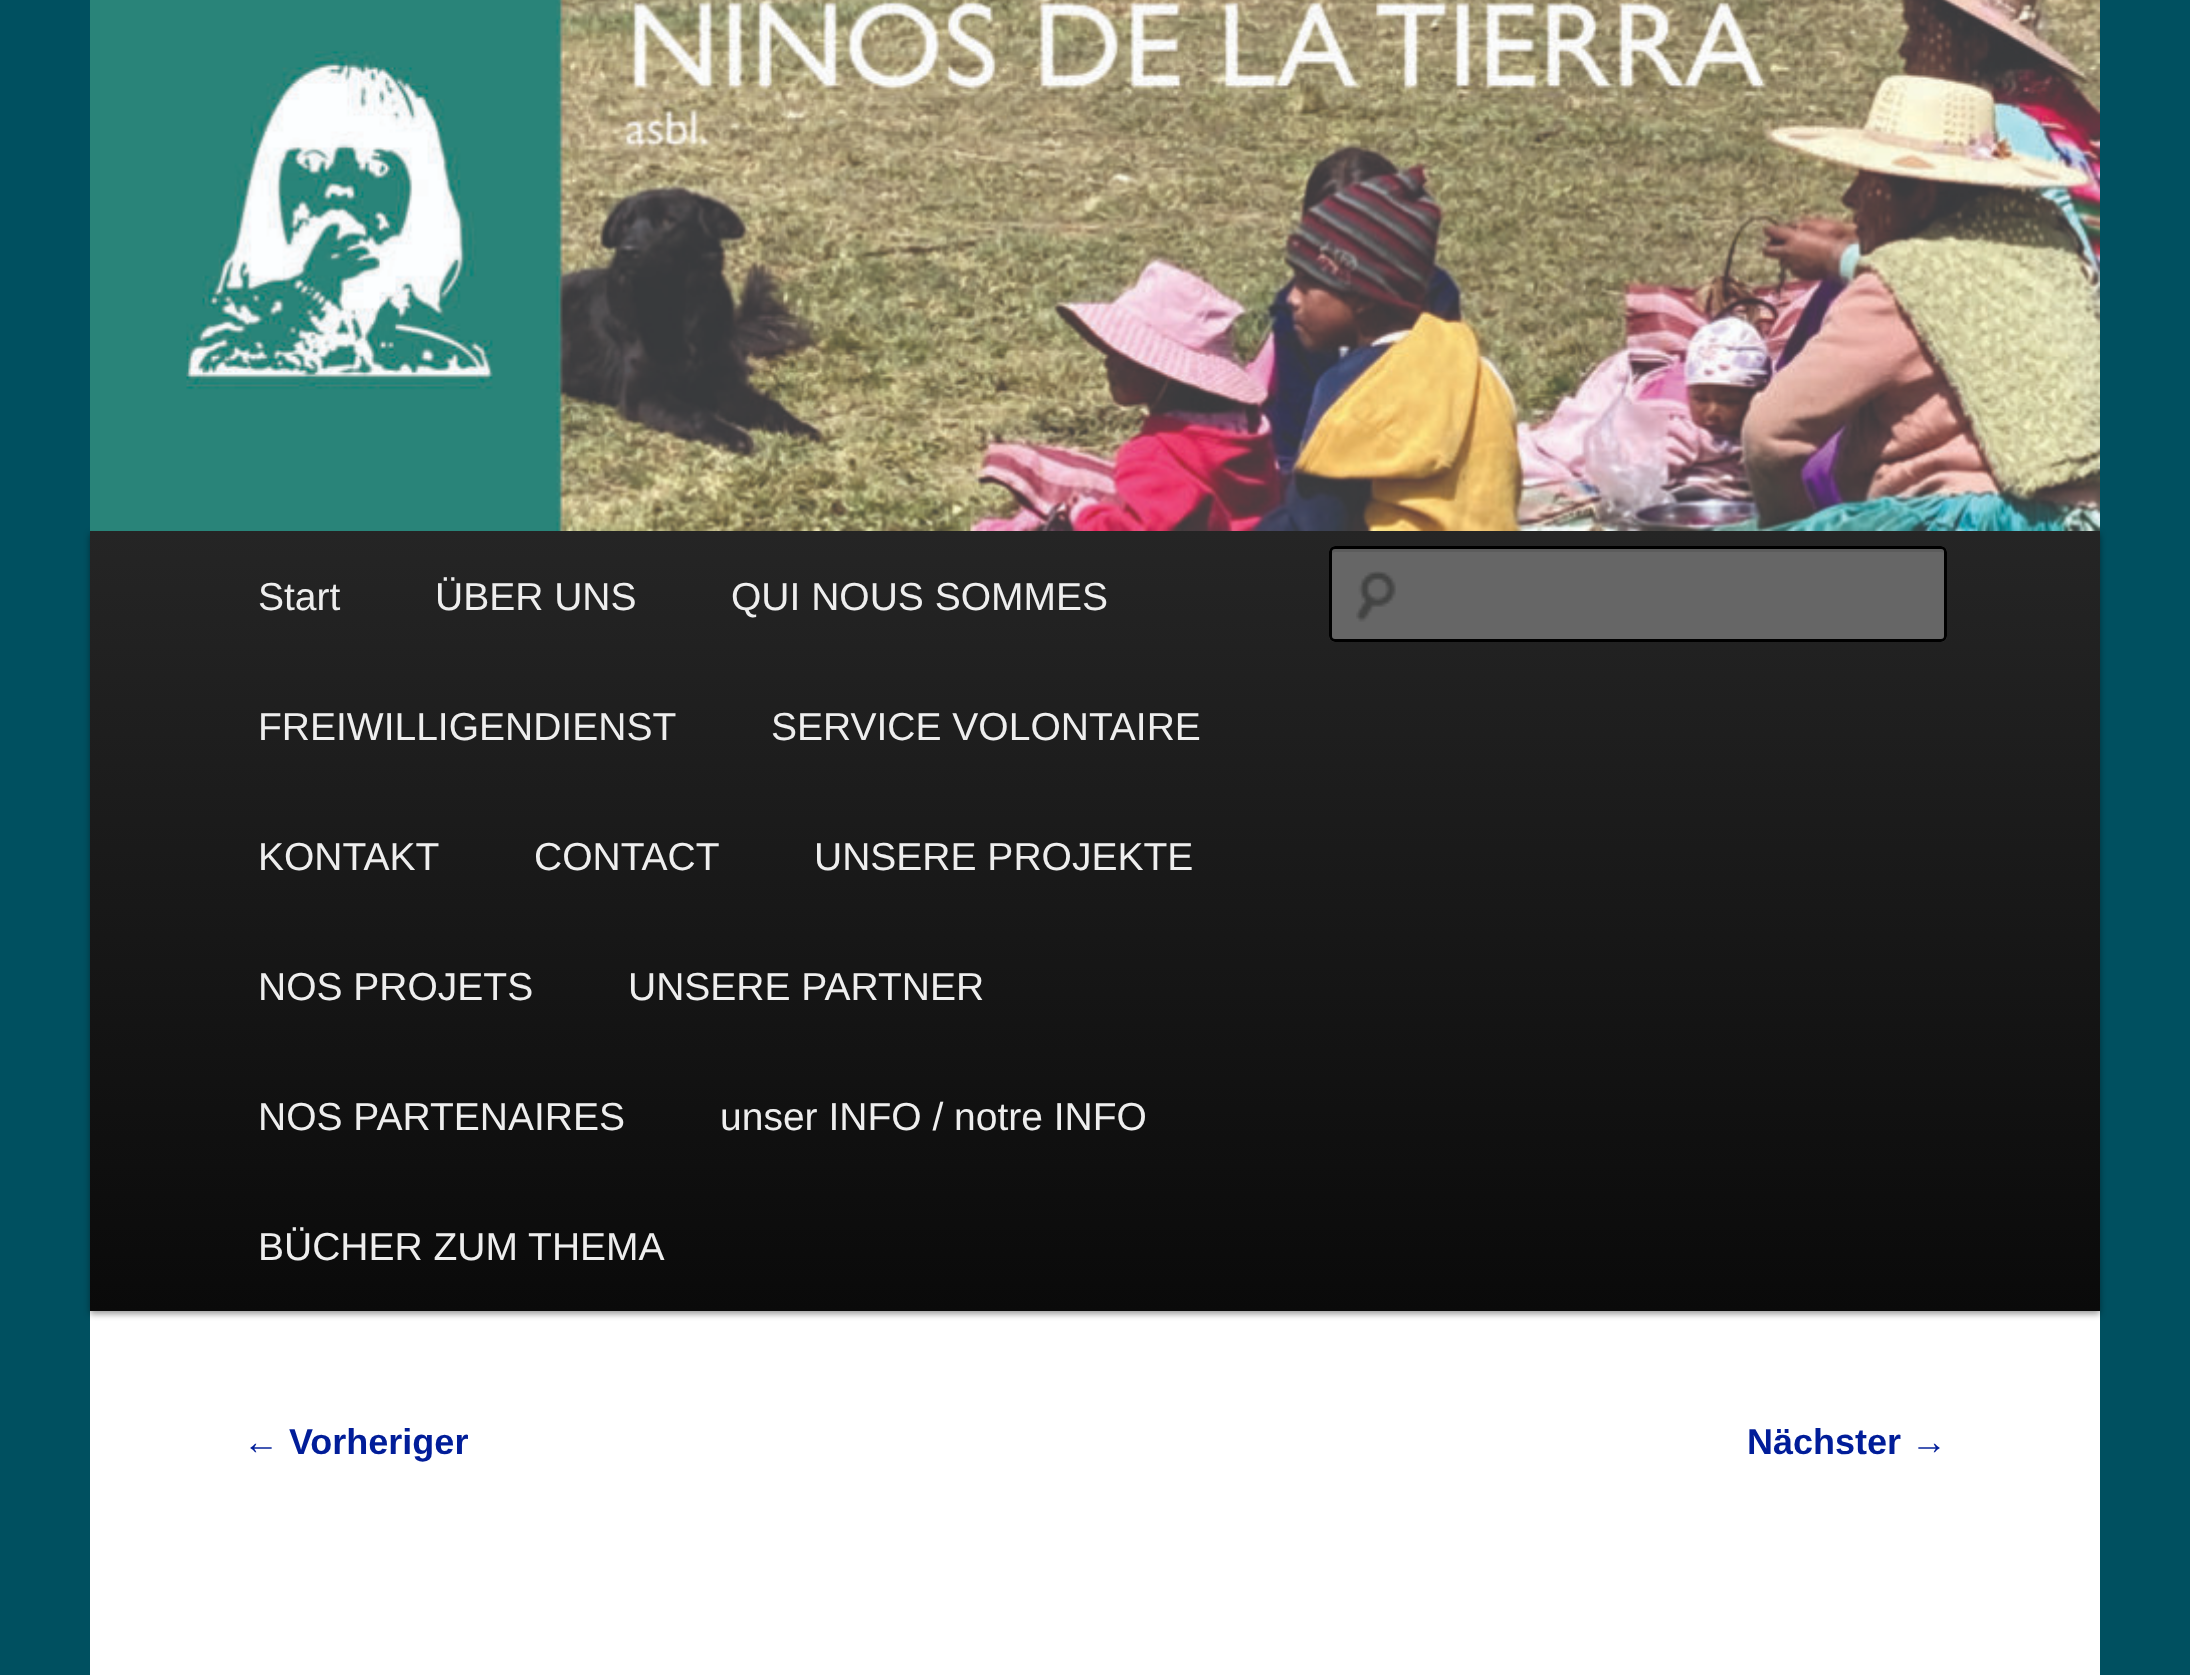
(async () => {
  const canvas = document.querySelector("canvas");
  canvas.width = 2190;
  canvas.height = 1675;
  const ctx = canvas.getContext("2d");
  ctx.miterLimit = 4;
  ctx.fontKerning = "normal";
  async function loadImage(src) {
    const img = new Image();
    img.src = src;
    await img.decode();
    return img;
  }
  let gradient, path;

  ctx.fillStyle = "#005060";
  ctx.fillRect(0, 0, 2190, 1675);
  ctx.fillStyle = "#ffffff";
  ctx.fillRect(90, 1311, 2010, 364);
  ctx.fillStyle = "rgba(0, 0, 0, 0.4)";
  ctx.filter = "blur(3px)";
  ctx.beginPath();
  ctx.rect(90, 534, 2010, 780);
  ctx.fill();
  ctx.filter = "none";
  ctx.drawImage(await loadImage("img/1.png"), 90, 0, 2010, 531);
  gradient = ctx.createLinearGradient(1095, 531, 1095, 1311);
  gradient.addColorStop(0, "#252525");
  gradient.addColorStop(1, "#0a0a0a");
  ctx.fillStyle = gradient;
  ctx.fillRect(90, 531, 2010, 780);
  ctx.fillStyle = "#666666";
  ctx.beginPath();
  ctx.roundRect(1329, 546, 618, 96, 6);
  ctx.fill();
  ctx.drawImage(await loadImage("img/2.png"), 1356, 571, 40, 51);
  ctx.fillStyle = "#5c5c5c";
  path = new Path2D("M1335 552H1941C1943 552 1944 553 1944 555L1943 550L1941 549H1335C1332 549 1332 553 1332 555C1332 553 1333 552 1335 552Z");
  ctx.fill(path);
  ctx.beginPath();
  ctx.roundRect(1330.5, 547.5, 615, 93, 4.5);
  ctx.strokeStyle = "#000000";
  ctx.lineWidth = 3;
  ctx.stroke();
  ctx.font = "39px Liberation Sans";
  ctx.fillStyle = "#eeeeee";
  for (const [text, x, y] of [
    ["Start", 258, 610],
    ["ÜBER UNS", 435, 610],
    ["QUI NOUS SOMMES", 731, 610],
    ["FREIWILLIGENDIENST", 258, 740],
    ["SERVICE VOLONTAIRE", 771, 740],
    ["KONTAKT", 258, 870],
    ["CONTACT", 534, 870],
    ["UNSERE PROJEKTE", 814, 870],
    ["NOS PROJETS", 258, 1000],
    ["UNSERE PARTNER", 628, 1000],
    ["NOS PARTENAIRES", 258, 1130],
    ["unser INFO / notre INFO", 720, 1130],
    ["BÜCHER ZUM THEMA", 258, 1260],
  ]) {
    ctx.fillText(text, x, y);
  }
  ctx.font = "36px Liberation Sans";
  ctx.fillStyle = "#011d99";
  ctx.fillText("←", 243, 1454);
  ctx.font = "bold 36px Liberation Sans";
  ctx.fillText("Vorheriger", 289, 1454);
  ctx.fillText("Nächster", 1747, 1454);
  ctx.font = "36px Liberation Sans";
  ctx.fillText("→", 1911, 1454);
})();
